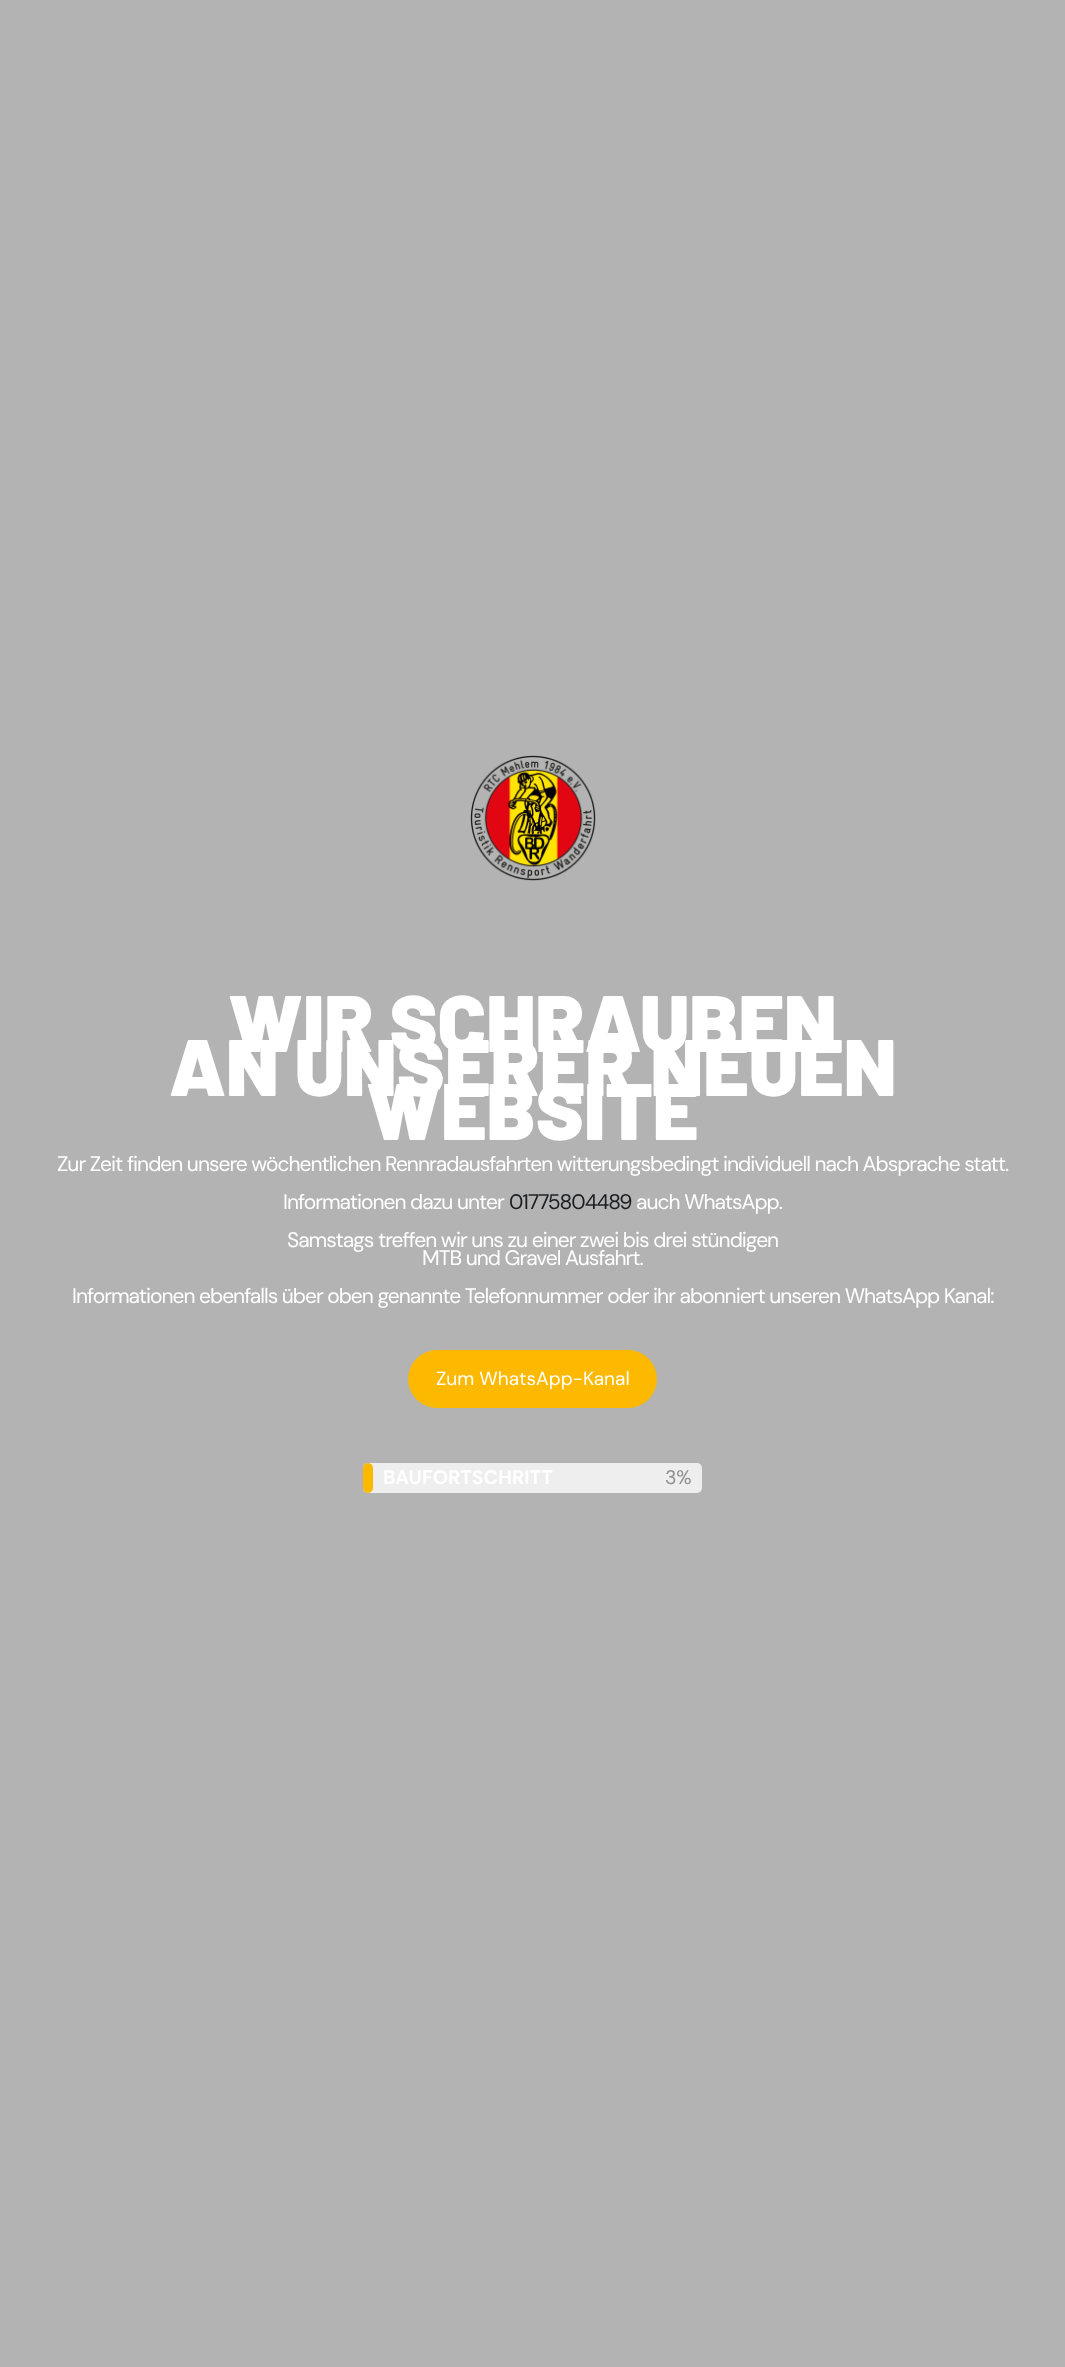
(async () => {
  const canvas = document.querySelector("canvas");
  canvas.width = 1065;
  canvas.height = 2367;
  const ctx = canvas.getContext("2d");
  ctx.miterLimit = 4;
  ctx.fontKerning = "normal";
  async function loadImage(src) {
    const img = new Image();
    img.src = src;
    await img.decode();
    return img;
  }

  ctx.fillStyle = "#b3b3b3";
  ctx.fillRect(0, 0, 1065, 2367);
  ctx.drawImage(await loadImage("img/1.png"), 470, 755, 126, 126);
  ctx.fillStyle = "#fcb900";
  ctx.beginPath();
  ctx.roundRect(408, 1350, 249, 58, 29);
  ctx.fill();
  ctx.fillStyle = "#eeeeee";
  ctx.beginPath();
  ctx.roundRect(363, 1463, 339, 30, 5);
  ctx.fill();
  ctx.fillStyle = "#fcb900";
  ctx.beginPath();
  ctx.roundRect(363, 1463, 10, 30, 5);
  ctx.fill();
  ctx.font = "900 80px Barlow";
  ctx.fillStyle = "#ffffff";
  for (const [text, x, y] of [
    ["WIR SCHRAUBEN", 228, 1052],
    ["AN UNSERER NEUEN", 169, 1096],
    ["WEBSITE", 366, 1140],
  ]) {
    ctx.fillText(text, x, y);
  }
  ctx.letterSpacing = "-1px";
  ctx.font = "21px DM Sans";
  ctx.fillText("Zur Zeit finden unsere wöchentlichen Rennradausfahrten witterungsbedingt individuell nach Absprache statt.", 57, 1171);
  ctx.fillText("Informationen dazu unter", 283, 1209);
  ctx.fillStyle = "#1c1e21";
  ctx.fillText("01775804489", 509, 1209);
  ctx.fillStyle = "#ffffff";
  for (const [text, x, y] of [
    ["auch WhatsApp.", 636, 1209],
    ["Samstags treffen wir uns zu einer zwei bis drei stündigen", 287, 1247],
    ["MTB und Gravel Ausfahrt.", 422, 1265],
    ["Informationen ebenfalls über oben genannte Telefonnummer oder ihr abonniert unseren WhatsApp Kanal:", 72, 1303],
  ]) {
    ctx.fillText(text, x, y);
  }
  ctx.letterSpacing = "0px";
  ctx.font = "19.1px DM Sans";
  ctx.fillText("Zum WhatsApp-Kanal", 436, 1385);
  ctx.font = "bold 19.5px DM Sans";
  ctx.fillText("BAUFORTSCHRITT", 383, 1484);
  ctx.font = "19.5px DM Sans";
  ctx.fillStyle = "#8f8f8f";
  ctx.fillText("3%", 665, 1484);
})();
